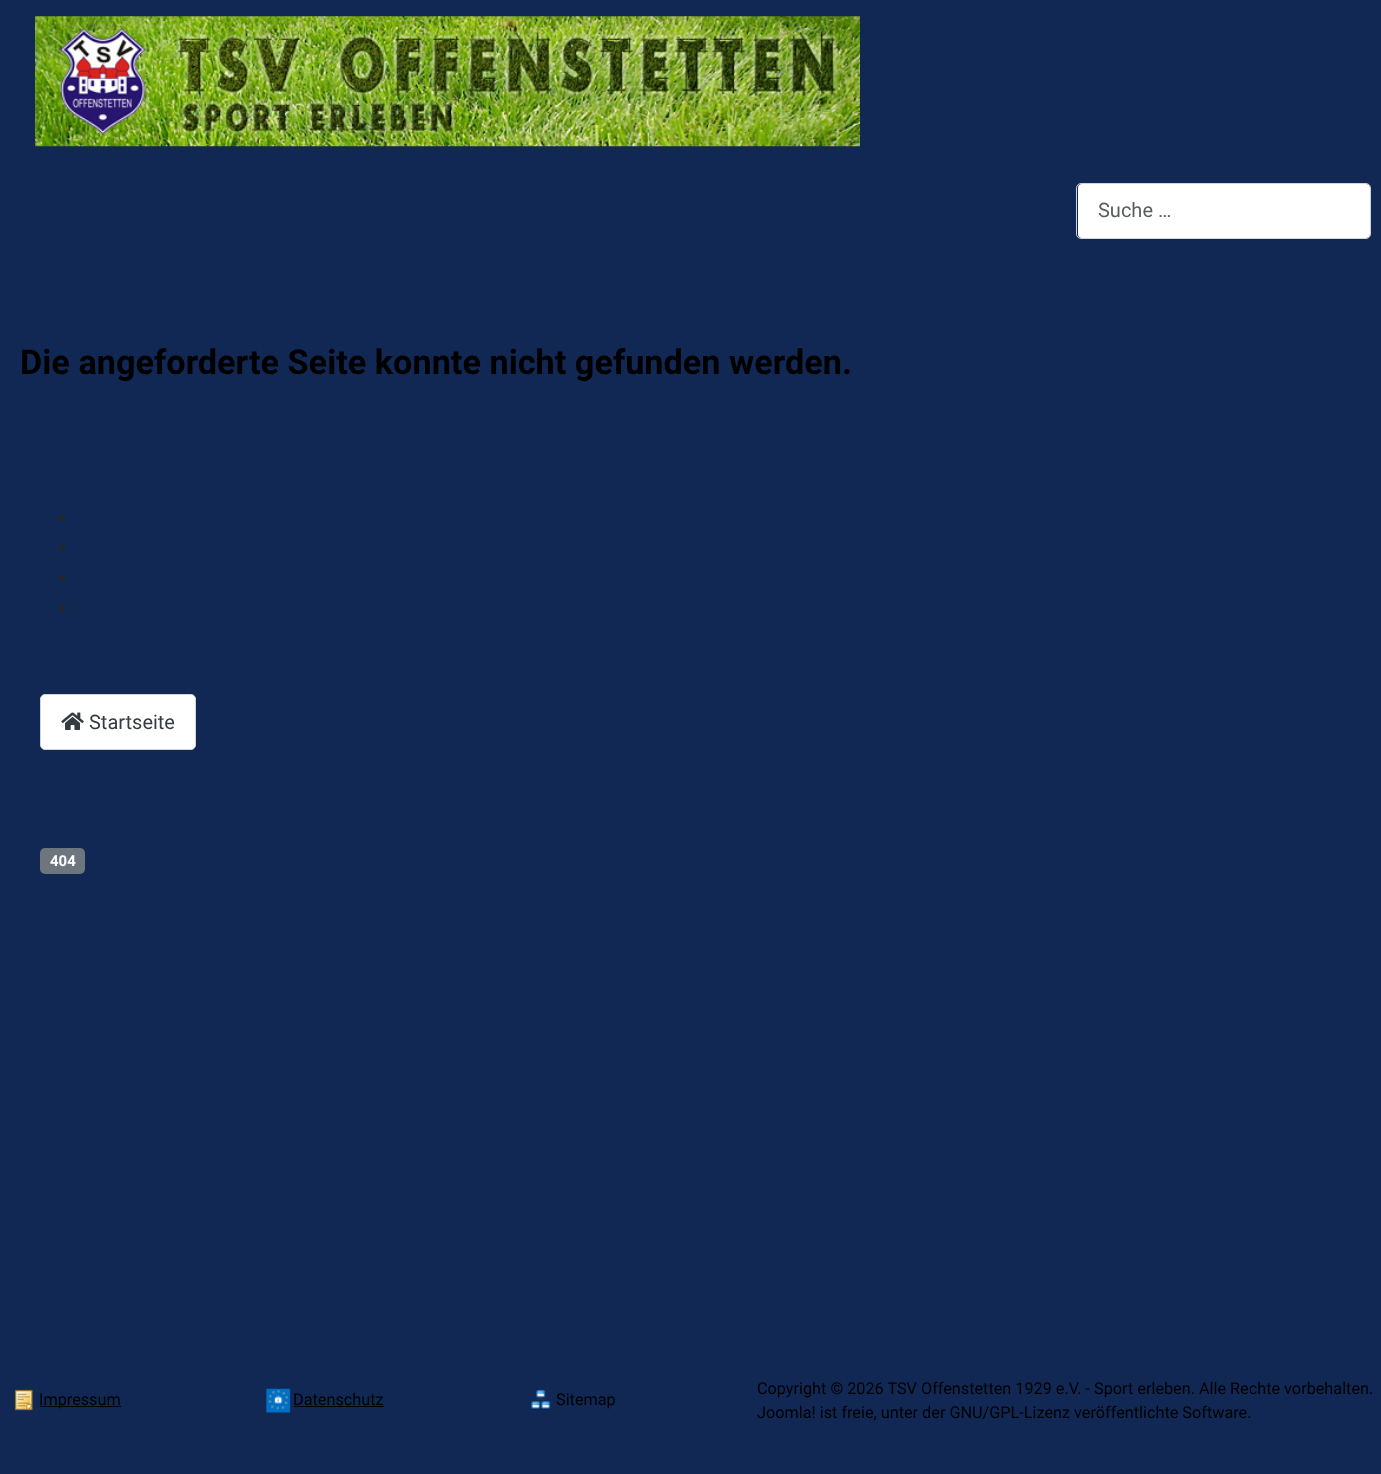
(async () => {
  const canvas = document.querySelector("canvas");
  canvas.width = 1381;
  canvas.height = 1474;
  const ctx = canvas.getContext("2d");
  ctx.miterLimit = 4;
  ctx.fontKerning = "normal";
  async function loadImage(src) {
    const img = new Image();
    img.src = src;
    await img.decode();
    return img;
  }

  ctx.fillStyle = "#112855";
  ctx.fillRect(0, 0, 1381, 1474);
  ctx.drawImage(await loadImage("img/1.png"), 35, 16, 825, 131);
  ctx.fillStyle = "#ffffff";
  ctx.beginPath();
  ctx.roundRect(1078, 184, 292, 54, 4);
  ctx.fill();
  ctx.beginPath();
  ctx.roundRect(1076.5, 183.5, 294, 55, 4.5);
  ctx.strokeStyle = "#ced4da";
  ctx.stroke();
  ctx.fillStyle = "#22262a";
  ctx.beginPath();
  ctx.arc(62, 518, 3, 0, Math.PI * 2);
  ctx.fill();
  ctx.beginPath();
  ctx.arc(62, 548, 3, 0, Math.PI * 2);
  ctx.fill();
  ctx.beginPath();
  ctx.arc(62, 578, 3, 0, Math.PI * 2);
  ctx.fill();
  ctx.beginPath();
  ctx.arc(62, 608, 3, 0, Math.PI * 2);
  ctx.fill();
  ctx.fillStyle = "#ffffff";
  ctx.beginPath();
  ctx.roundRect(40.5, 694.5, 155, 55, 4.5);
  ctx.fill();
  ctx.stroke();
  ctx.drawImage(await loadImage("img/2.png"), 61, 712, 23, 18);
  ctx.fillStyle = "#15284a";
  ctx.fillRect(40, 770, 1301, 1);
  ctx.fillStyle = "#6d757e";
  ctx.beginPath();
  ctx.roundRect(40, 848, 45, 26, 5);
  ctx.fill();
  ctx.drawImage(await loadImage("img/3.png"), 14, 1389, 19, 22);
  ctx.fillStyle = "#000000";
  ctx.fillRect(40, 1406, 81, 1);
  ctx.drawImage(await loadImage("img/4.png"), 266, 1388, 25, 25);
  ctx.fillRect(294, 1406, 90, 1);
  ctx.drawImage(await loadImage("img/5.png"), 531, 1389, 20, 21);
  ctx.font = "20px Roboto";
  ctx.fillStyle = "#595c5f";
  ctx.fillText("Suche …", 1098, 217);
  ctx.font = "bold 34.25px Roboto";
  ctx.fillStyle = "#000000";
  ctx.fillText("Die angeforderte Seite konnte nicht gefunden werden.", 20, 374);
  ctx.font = "20px Roboto";
  ctx.fillStyle = "#353b41";
  ctx.fillText("Startseite", 89, 729);
  ctx.font = "bold 15px Roboto";
  ctx.fillStyle = "#ffffff";
  ctx.fillText("404", 50, 866);
  ctx.font = "16.25px Roboto";
  ctx.fillStyle = "#000000";
  for (const [text, x, y] of [
    ["Impressum", 39, 1405],
    ["Datenschutz", 293, 1405],
    ["Sitemap", 556, 1405],
    ["Copyright © 2026 TSV Offenstetten 1929 e.V. - Sport erleben. Alle Rechte vorbehalten.", 757, 1394],
    ["Joomla! ist freie, unter der GNU/GPL-Lizenz veröffentlichte Software.", 757, 1418],
  ]) {
    ctx.fillText(text, x, y);
  }
})();
